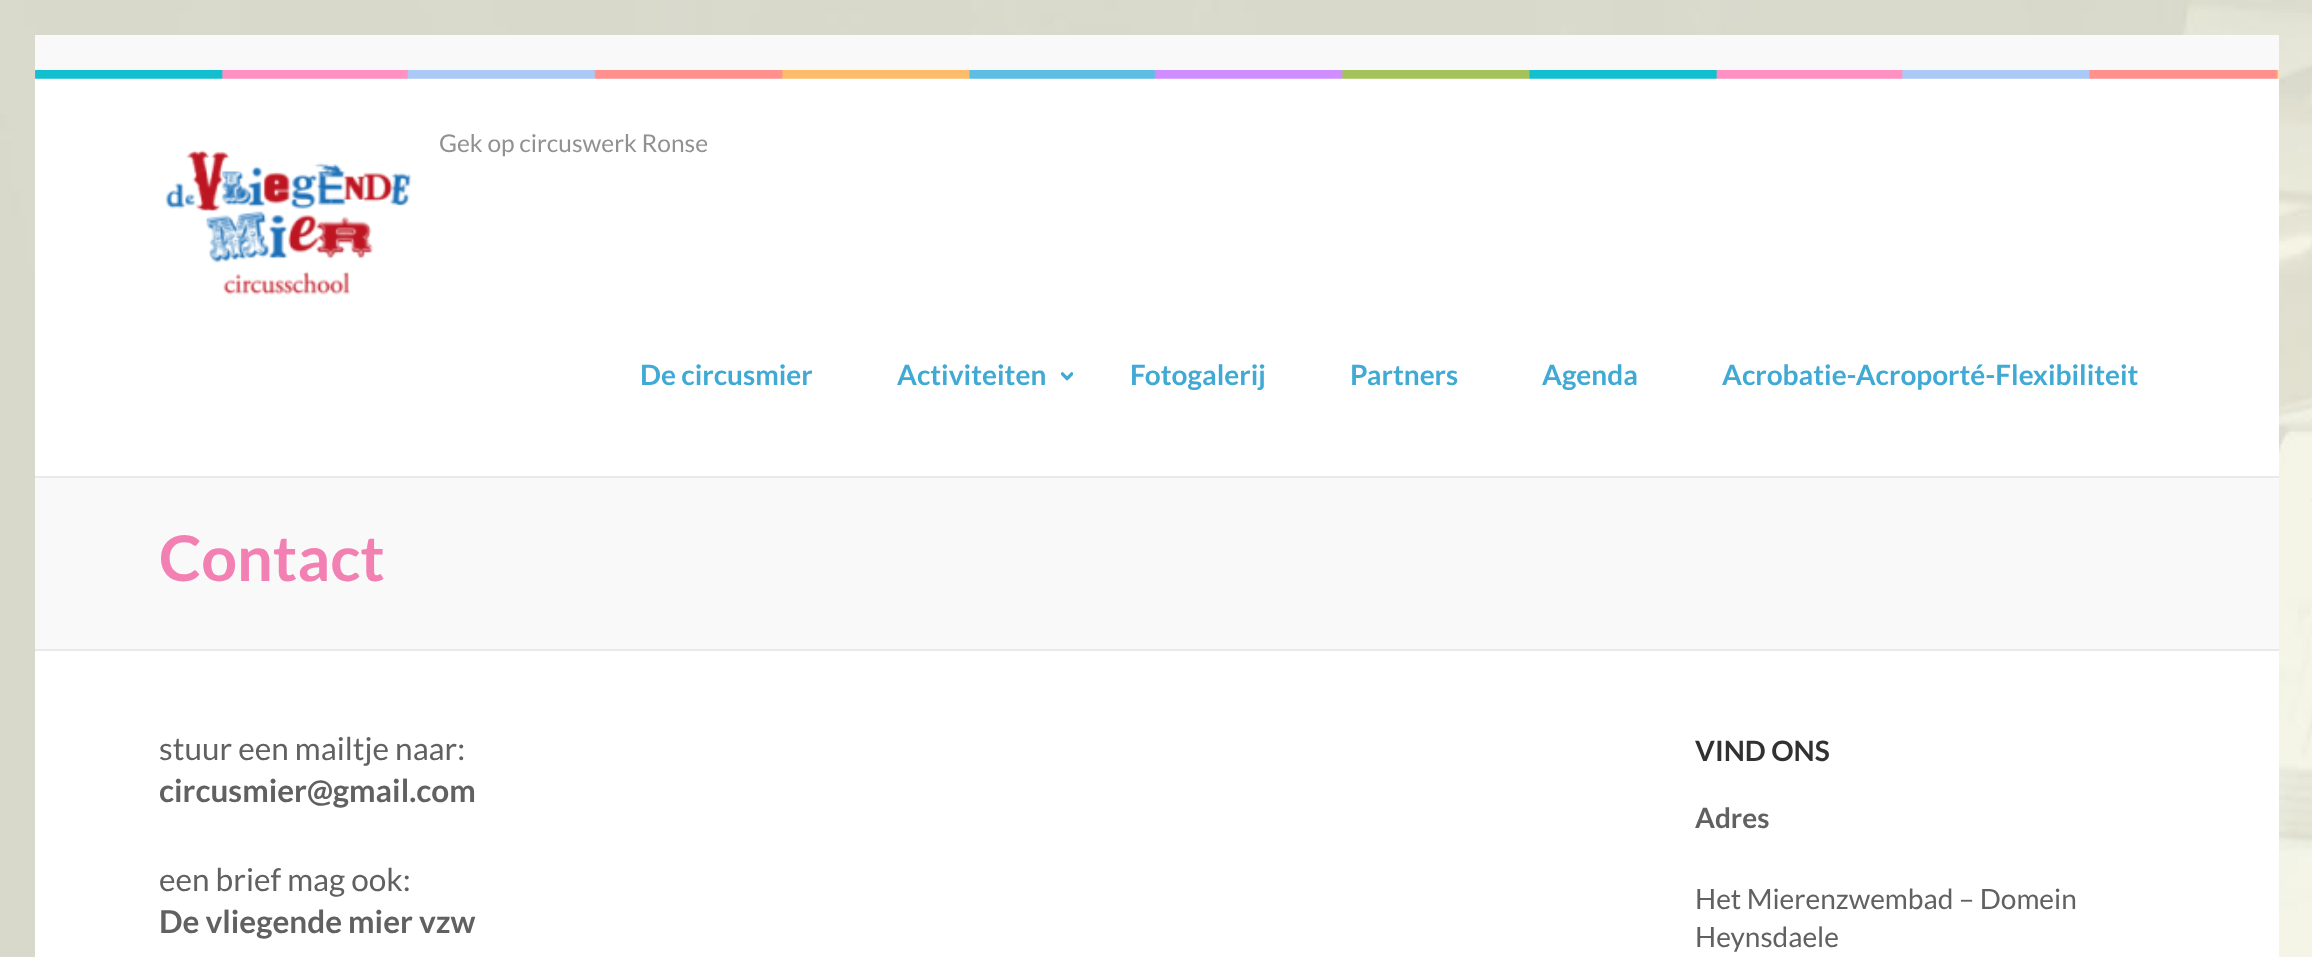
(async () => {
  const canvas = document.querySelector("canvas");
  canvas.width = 2312;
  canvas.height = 957;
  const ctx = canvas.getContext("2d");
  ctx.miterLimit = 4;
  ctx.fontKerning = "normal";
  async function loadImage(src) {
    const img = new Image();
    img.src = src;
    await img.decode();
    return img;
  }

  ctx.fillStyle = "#ffffff";
  ctx.fillRect(0, 0, 2312, 957);
  ctx.drawImage(await loadImage("img/1.png"), 0, 0, 2312, 957);
  ctx.fillRect(35, 79, 2244, 878);
  ctx.fillStyle = "#f9f9f9";
  ctx.fillRect(35, 35, 2244, 44);
  ctx.drawImage(await loadImage("img/2.png"), 35, 70, 2244, 9);
  ctx.drawImage(await loadImage("img/3.png"), 165, 150, 247, 145);
  ctx.drawImage(await loadImage("img/4.png"), 1061, 372, 12, 9);
  for (const [x, y, w, h, color] of [
    [35, 478, 2244, 171, "#f9f9f9"],
    [35, 476, 2244, 2, "#e9e9e9"],
    [35, 649, 2244, 2, "#e9e9e9"],
  ]) {
    ctx.fillStyle = color;
    ctx.fillRect(x, y, w, h);
  }
  ctx.font = "24.5px Lato";
  ctx.fillStyle = "#919191";
  ctx.fillText("Gek op circuswerk Ronse", 439, 152);
  ctx.font = "bold 28px Lato";
  ctx.fillStyle = "#41aad4";
  for (const [text, x, y] of [
    ["De circusmier", 640, 385],
    ["Activiteiten", 897, 385],
    ["Fotogalerij", 1130, 385],
    ["Partners", 1350, 385],
    ["Agenda", 1542, 385],
    ["Acrobatie-Acroporté-Flexibiliteit", 1722, 385],
  ]) {
    ctx.fillText(text, x, y);
  }
  ctx.font = "bold 63px Lato";
  ctx.fillStyle = "#f380b2";
  ctx.fillText("Contact", 159, 581);
  ctx.font = "31.5px Lato";
  ctx.fillStyle = "#616161";
  ctx.fillText("stuur een mailtje naar:", 159, 760);
  ctx.font = "bold 31.5px Lato";
  ctx.fillText("circusmier@gmail.com", 159, 802);
  ctx.font = "31.5px Lato";
  ctx.fillText("een brief mag ook:", 159, 891);
  ctx.font = "bold 31.5px Lato";
  ctx.fillText("De vliegende mier vzw", 159, 933);
  ctx.font = "bold 28px Lato";
  ctx.fillStyle = "#313131";
  ctx.fillText("VIND ONS", 1695, 761);
  ctx.fillStyle = "#616161";
  ctx.fillText("Adres", 1695, 828);
  ctx.font = "28px Lato";
  ctx.fillText("Het Mierenzwembad – Domein", 1695, 909);
  ctx.fillText("Heynsdaele", 1695, 947);
})();
